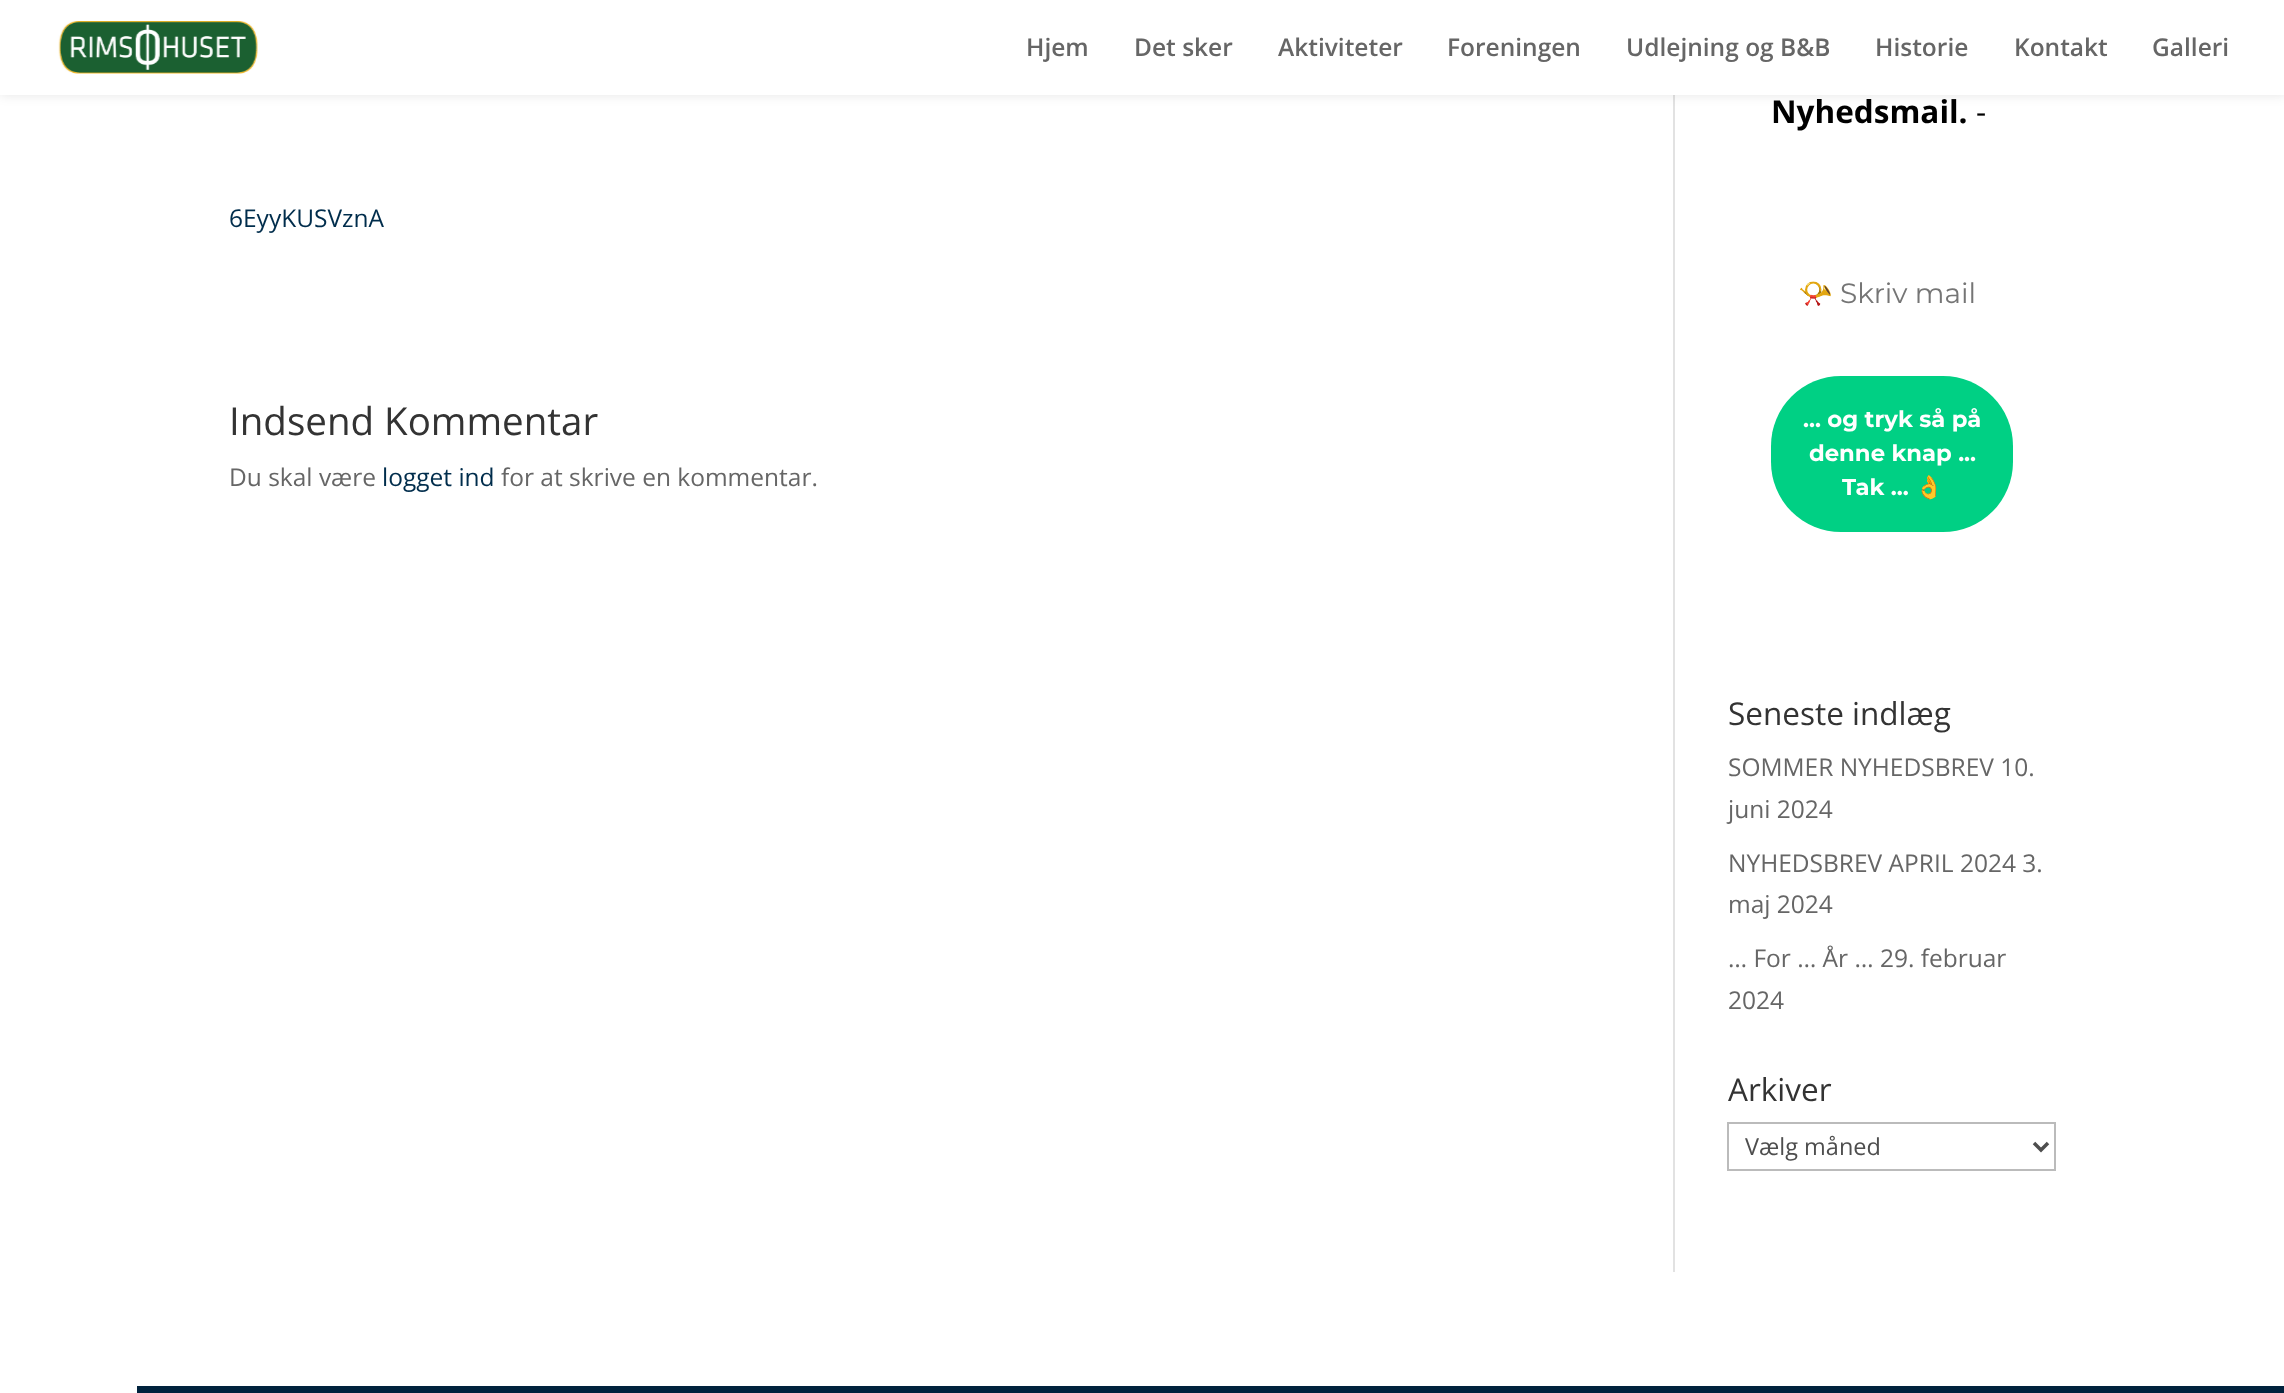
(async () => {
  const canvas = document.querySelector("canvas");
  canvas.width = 2284;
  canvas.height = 1393;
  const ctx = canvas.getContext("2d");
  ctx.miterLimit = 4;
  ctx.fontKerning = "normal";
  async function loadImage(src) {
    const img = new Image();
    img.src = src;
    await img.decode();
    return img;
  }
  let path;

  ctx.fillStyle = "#ffffff";
  ctx.fillRect(0, 0, 2284, 1393);
  ctx.fillStyle = "#e2e2e2";
  ctx.fillRect(1673, 95, 2, 1177);
  ctx.fillStyle = "rgba(0, 0, 0, 0.1)";
  ctx.filter = "blur(6px)";
  ctx.beginPath();
  ctx.rect(0, 0, 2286, 95);
  ctx.fill();
  ctx.filter = "none";
  ctx.fillStyle = "#ffffff";
  ctx.fillRect(0, 0, 2284, 95);
  ctx.drawImage(await loadImage("img/1.png"), 58, 21, 200, 53);
  ctx.fillStyle = "#00d084";
  ctx.beginPath();
  ctx.roundRect(1771, 376, 242, 156, 70);
  ctx.fill();
  ctx.strokeStyle = "#bbbbbb";
  ctx.lineWidth = 2;
  ctx.strokeRect(1728, 1123, 327, 47);
  path = new Path2D("M2034 1143L2041 1150L2048 1143");
  ctx.strokeStyle = "#4e4e4e";
  ctx.lineWidth = 3.5;
  ctx.stroke(path);
  ctx.fillStyle = "#00223d";
  ctx.fillRect(137, 1386, 2147, 7);
  ctx.font = "600 24.5px Open Sans";
  ctx.fillStyle = "#666666";
  for (const [text, x, y] of [
    ["Hjem", 1026, 56],
    ["Det sker", 1134, 56],
    ["Aktiviteter", 1278, 56],
    ["Foreningen", 1447, 56],
    ["Udlejning og B&B", 1626, 56],
    ["Historie", 1875, 56],
    ["Kontakt", 2014, 56],
    ["Galleri", 2152, 56],
  ]) {
    ctx.fillText(text, x, y);
  }
  ctx.font = "24.5px Open Sans";
  ctx.fillStyle = "#002d4c";
  ctx.fillText("6EyyKUSVznA", 229, 227);
  ctx.font = "38.5px Open Sans";
  ctx.fillStyle = "#333333";
  ctx.fillText("Indsend Kommentar", 229, 435);
  ctx.font = "24.5px Open Sans";
  ctx.fillStyle = "#666666";
  ctx.fillText("Du skal være", 229, 486);
  ctx.fillStyle = "#002d4c";
  ctx.fillText("logget ind", 382, 486);
  ctx.fillStyle = "#666666";
  ctx.fillText("for at skrive en kommentar.", 501, 486);
  ctx.font = "bold 31.5px Open Sans";
  ctx.fillStyle = "#000000";
  ctx.fillText("Nyhedsmail.", 1771, 123);
  ctx.font = "31.5px Open Sans";
  ctx.fillText("-", 1976, 123);
  ctx.font = "28px Noto Color Emoji";
  ctx.fillStyle = "#757575";
  ctx.fillText("📯", 1798, 303);
  ctx.font = "28px Montserrat";
  ctx.fillText("Skriv mail", 1840, 303);
  ctx.font = "bold 22.75px Montserrat";
  ctx.fillStyle = "#ffffff";
  for (const [text, x, y] of [
    ["... og tryk så på", 1803, 427],
    ["denne knap ...", 1809, 461],
    ["Tak ...", 1842, 495],
  ]) {
    ctx.fillText(text, x, y);
  }
  ctx.font = "bold 22.75px Noto Color Emoji";
  ctx.fillText("👌", 1915, 495);
  ctx.font = "31.5px Open Sans";
  ctx.fillStyle = "#333333";
  ctx.fillText("Seneste indlæg", 1728, 725);
  ctx.font = "24.5px Open Sans";
  ctx.fillStyle = "#666666";
  for (const [text, x, y] of [
    ["SOMMER NYHEDSBREV 10.", 1728, 776],
    ["juni 2024", 1728, 818],
    ["NYHEDSBREV APRIL 2024 3.", 1728, 872],
    ["maj 2024", 1728, 913],
    ["… For … År … 29. februar", 1728, 967],
    ["2024", 1728, 1009],
  ]) {
    ctx.fillText(text, x, y);
  }
  ctx.font = "31.5px Open Sans";
  ctx.fillStyle = "#333333";
  ctx.fillText("Arkiver", 1728, 1101);
  ctx.font = "23.5px Open Sans";
  ctx.fillStyle = "#4e4e4e";
  ctx.fillText("Vælg måned", 1745, 1155);
})();
